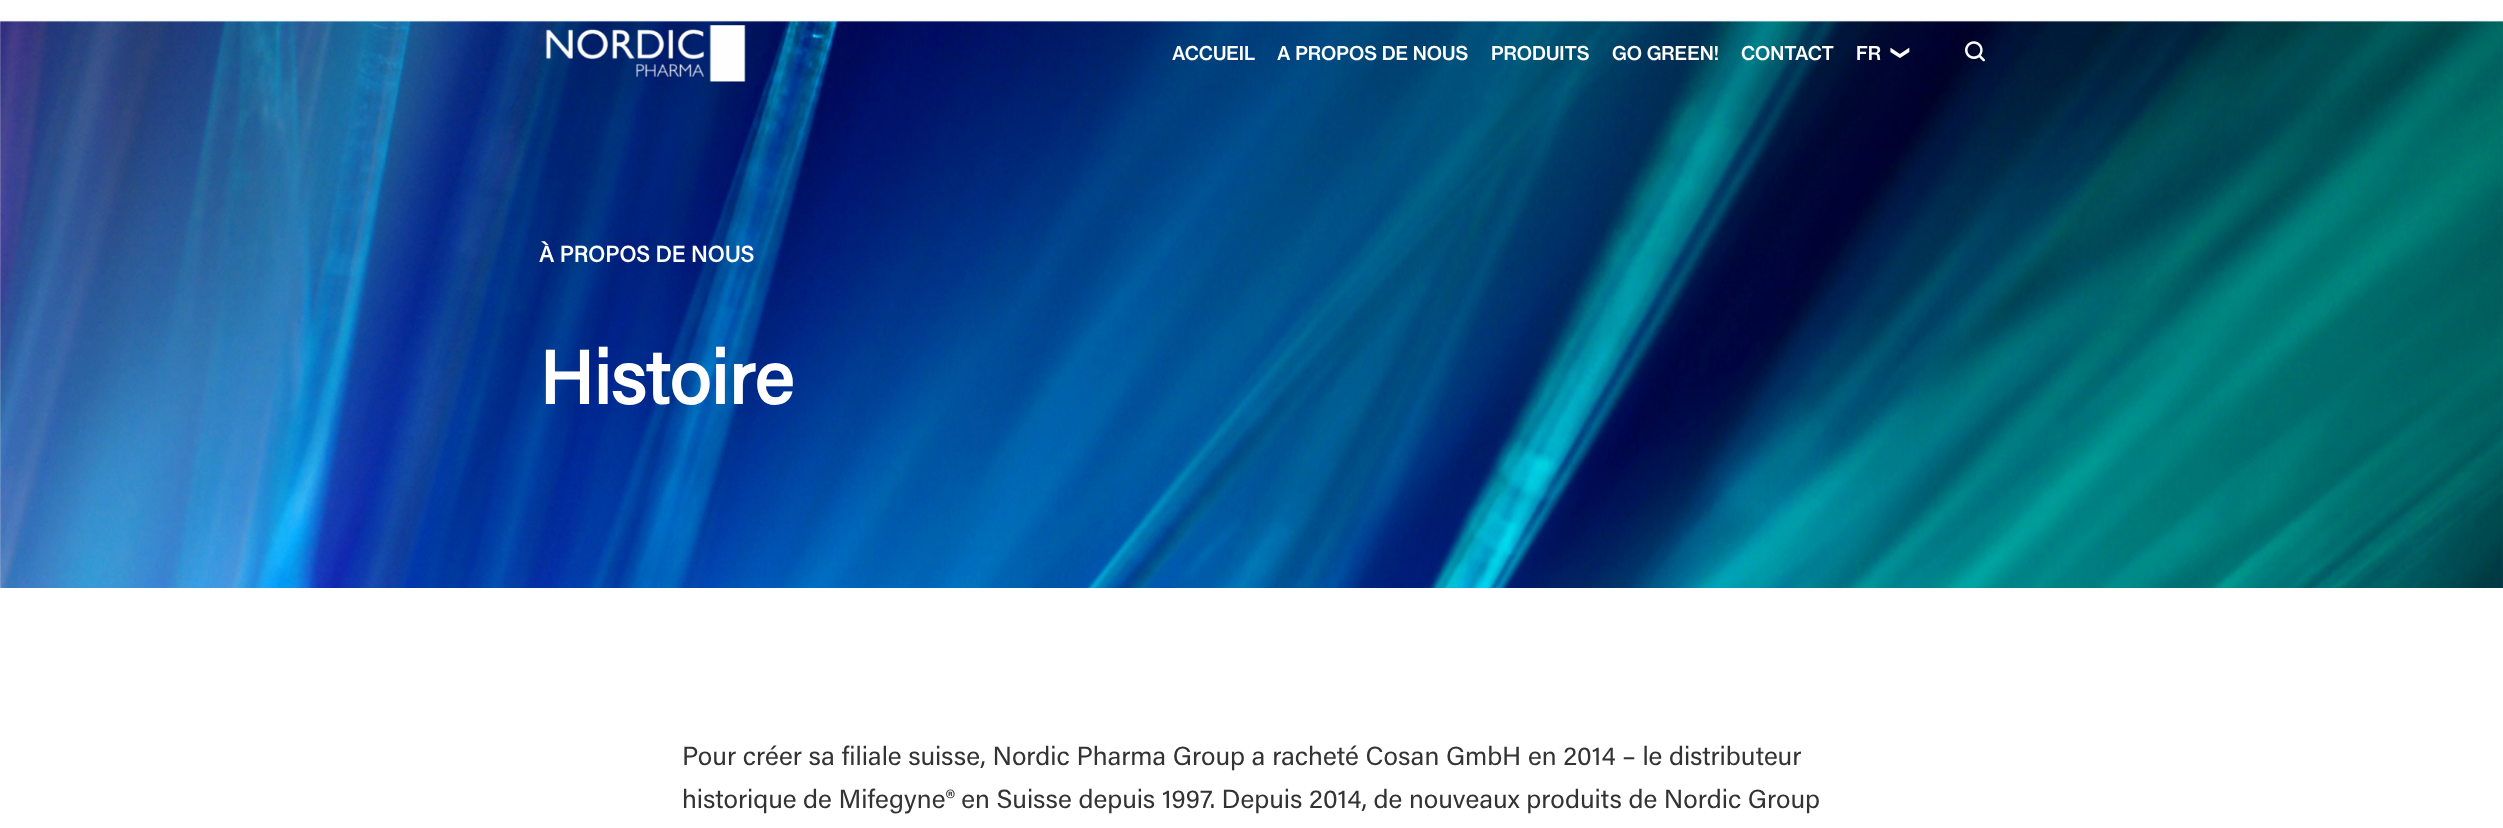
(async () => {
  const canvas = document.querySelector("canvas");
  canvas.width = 2503;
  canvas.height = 828;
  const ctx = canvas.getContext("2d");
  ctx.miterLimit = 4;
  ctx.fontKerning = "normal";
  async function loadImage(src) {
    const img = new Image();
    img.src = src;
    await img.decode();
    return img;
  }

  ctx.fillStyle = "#ffffff";
  ctx.fillRect(0, 0, 2503, 828);
  ctx.drawImage(await loadImage("img/3.png"), 0, 20, 2503, 568);
  ctx.drawImage(await loadImage("img/1.png"), 545, 25, 201, 57);
  ctx.drawImage(await loadImage("img/2.png"), 1965, 41, 20, 21);
  ctx.font = "500 18.75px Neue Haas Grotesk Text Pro";
  for (const [text, x, y] of [
    ["ACCUEIL", 1172, 60],
    ["A PROPOS DE NOUS", 1277, 60],
    ["PRODUITS", 1491, 60],
    ["GO GREEN!", 1612, 60],
    ["CONTACT", 1741, 60],
    ["FR", 1856, 60],
  ]) {
    ctx.fillText(text, x, y);
  }
  ctx.font = "18.75px DejaVu Sans";
  ctx.save();
  ctx.translate(1895, 45);
  ctx.rotate(90 * Math.PI / 180);
  ctx.fillText("❯", 0, 0);
  ctx.restore();
  ctx.font = "bold 22.5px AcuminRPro";
  ctx.fillText("À PROPOS DE NOUS", 539, 262);
  ctx.font = "bold 75px AcuminRPro";
  ctx.fillText("Histoire", 539, 404);
  ctx.font = "26.25px AcuminRPro";
  ctx.fillStyle = "#333333";
  ctx.fillText("Pour créer sa filiale suisse, Nordic Pharma Group a racheté Cosan GmbH en 2014 – le distributeur", 682, 765);
  ctx.fillText("historique de Mifegyne® en Suisse depuis 1997. Depuis 2014, de nouveaux produits de Nordic Group", 682, 808);
})();
